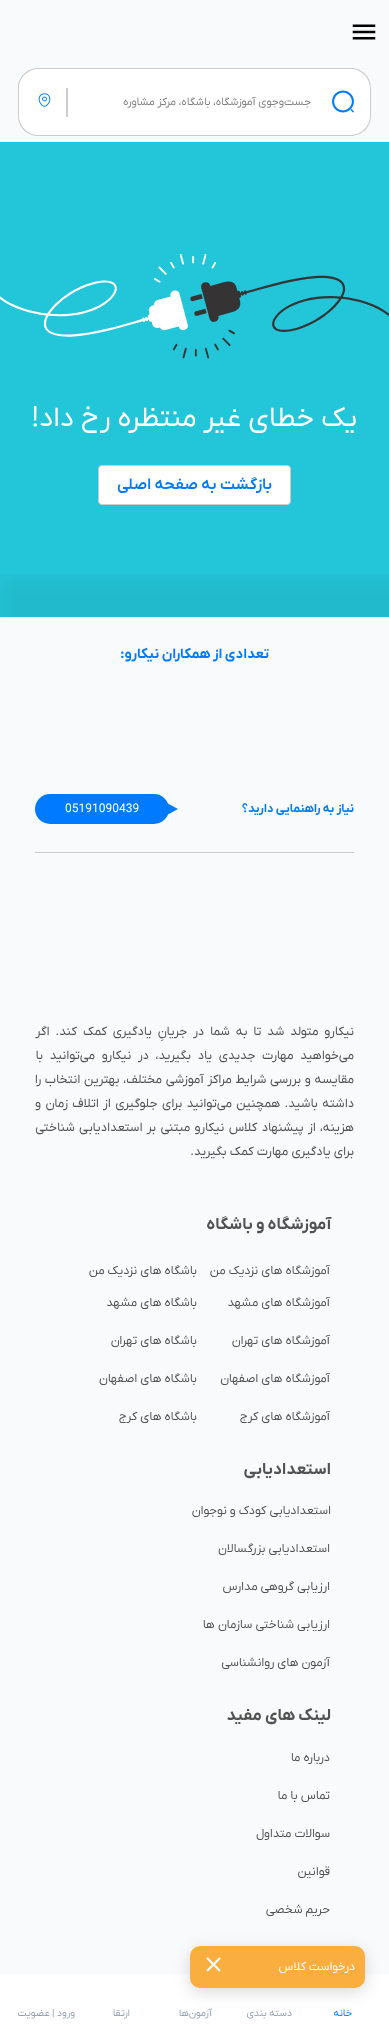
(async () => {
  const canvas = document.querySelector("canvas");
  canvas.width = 389;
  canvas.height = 2030;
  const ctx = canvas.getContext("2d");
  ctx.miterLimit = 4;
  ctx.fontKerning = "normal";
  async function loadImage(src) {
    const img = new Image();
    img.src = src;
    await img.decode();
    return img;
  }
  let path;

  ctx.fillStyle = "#f9fafb";
  ctx.fillRect(0, 0, 389, 2030);
  ctx.fillStyle = "#f7f7f7";
  ctx.fillRect(0, 141, 389, 1);
  ctx.drawImage(await loadImage("img/1.png"), 352, 24, 24, 16);
  ctx.fillStyle = "#ffffff";
  ctx.beginPath();
  ctx.roundRect(18, 68, 353, 68, 20);
  ctx.fill();
  ctx.fillStyle = "#cccccc";
  path = new Path2D("M325 68H351C362 68 371 77 371 88V116C371 127 362 136 351 136H325ZM325 69H351C361 69 370 78 370 88V116C370 126 361 135 351 135H325Z");
  ctx.fill(path, "evenodd");
  ctx.drawImage(await loadImage("img/2.png"), 332, 90, 22, 23);
  ctx.fillRect(73, 68, 252, 1);
  ctx.fillRect(73, 135, 252, 1);
  path = new Path2D("M38 68H73V136H38C27 136 18 127 18 116V88C18 77 27 68 38 68ZM38 69H73V135H38C28 135 19 126 19 116V88C19 78 28 69 38 69Z");
  ctx.fill(path, "evenodd");
  ctx.fillRect(66, 88, 2, 29);
  ctx.drawImage(await loadImage("img/3.png"), 38, 93, 13, 14);
  ctx.fillStyle = "#23c5d8";
  ctx.fillRect(0, 142, 389, 475);
  ctx.drawImage(await loadImage("img/4.png"), 0, 254, 389, 105);
  ctx.fillStyle = "#ffffff";
  ctx.beginPath();
  ctx.roundRect(98.5, 465.5, 192, 39, 3.5);
  ctx.fill();
  ctx.strokeStyle = "#cccccc";
  ctx.stroke();
  ctx.save();
  ctx.beginPath();
  ctx.rect(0, 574, 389, 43);
  ctx.clip();
  ctx.fillStyle = "rgba(0, 0, 0, 0.05)";
  ctx.filter = "blur(10px)";
  ctx.beginPath();
  ctx.rect(0, 577, 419, 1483);
  ctx.fill();
  ctx.filter = "none";
  ctx.restore();
  ctx.fillStyle = "#cccccc";
  ctx.fillRect(35, 852, 319, 1);
  ctx.fillStyle = "#007bff";
  ctx.beginPath();
  ctx.roundRect(35, 794, 134, 30, 15);
  ctx.fill();
  path = new Path2D("M167 815V803L178 809Z");
  ctx.fill(path);
  ctx.fillStyle = "#ffffff";
  ctx.fillRect(0, 1974, 389, 56);
  ctx.fillStyle = "rgba(0, 0, 0, 0.15)";
  ctx.filter = "blur(8px)";
  ctx.beginPath();
  ctx.roundRect(190, 1950, 175, 42, 10);
  ctx.fill();
  ctx.filter = "none";
  ctx.fillStyle = "#fbae40";
  ctx.beginPath();
  ctx.roundRect(190, 1946, 175, 42, 10);
  ctx.fill();
  ctx.drawImage(await loadImage("img/5.png"), 206, 1957, 15, 15);
  ctx.direction = "rtl";
  ctx.font = "11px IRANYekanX";
  ctx.fillStyle = "#808080";
  ctx.fillText("جست‌وجوی آموزشگاه، باشگاه، مرکز مشاوره", 311, 105);
  ctx.font = "28px IRANYekanX";
  ctx.fillStyle = "#ffffff";
  ctx.fillText("یک خطای غیر منتظره رخ داد!", 357, 426);
  ctx.font = "600 16px IRANYekanX";
  ctx.fillStyle = "#007bff";
  ctx.fillText("بازگشت به صفحه اصلی", 272, 489);
  ctx.font = "bold 14px IRANYekanX";
  ctx.fillText("تعدادی از همکاران نیکارو:", 269, 658);
  ctx.font = "bold 12px IRANYekanX";
  ctx.fillText("نیاز به راهنمایی دارید؟", 354, 812);
  ctx.direction = "ltr";
  ctx.font = "12px IRANYekanX";
  ctx.fillStyle = "#ffffff";
  ctx.fillText("05191090439", 65, 812);
  ctx.wordSpacing = "2.75px";
  ctx.direction = "rtl";
  ctx.font = "12.6px IRANYekanX";
  ctx.fillStyle = "#525252";
  ctx.fillText("نیکارو متولد شد تا به شما در جریانِ یادگیری کمک کند. اگر", 354, 1035);
  ctx.wordSpacing = "3.5px";
  ctx.fillText("می‌خواهید مهارت جدیدی یاد بگیرید، در نیکارو می‌توانید با", 354, 1059);
  ctx.wordSpacing = "0.6px";
  ctx.fillText("مقایسه و بررسی شرایط مراکز آموزشی مختلف، بهترین انتخاب را", 354, 1083);
  ctx.wordSpacing = "1.25px";
  ctx.fillText("داشته باشید. همچنین می‌توانید برای جلوگیری از اتلاف زمان و", 354, 1107);
  ctx.fillText("هزینه، از پیشنهاد کلاس نیکارو مبتنی بر استعدادیابی شناختی", 354, 1131);
  ctx.wordSpacing = "0px";
  ctx.fillText("برای یادگیری مهارت کمک بگیرید.", 354, 1155);
  ctx.font = "bold 16.5px IRANYekanX";
  ctx.fillText("آموزشگاه و باشگاه", 331, 1229);
  ctx.font = "12.25px IRANYekanX";
  for (const [text, x, y] of [
    ["آموزشگاه های نزدیک من", 330, 1274],
    ["آموزشگاه های مشهد", 330, 1306],
    ["آموزشگاه های تهران", 330, 1344],
    ["آموزشگاه های اصفهان", 330, 1382],
    ["آموزشگاه های کرج", 330, 1420],
    ["باشگاه های نزدیک من", 197, 1274],
    ["باشگاه های مشهد", 197, 1306],
    ["باشگاه های تهران", 197, 1344],
    ["باشگاه های اصفهان", 197, 1382],
    ["باشگاه های کرج", 197, 1420],
  ]) {
    ctx.fillText(text, x, y);
  }
  ctx.font = "bold 16.5px IRANYekanX";
  ctx.fillText("استعدادیابی", 331, 1474);
  ctx.font = "12.25px IRANYekanX";
  for (const [text, x, y] of [
    ["استعدادیابی کودک و نوجوان", 331, 1514],
    ["استعدادیابی بزرگسالان", 330, 1552],
    ["ارزیابی گروهی مدارس", 330, 1590],
    ["ارزیابی شناختی سازمان ها", 330, 1628],
    ["آزمون های روانشناسی", 330, 1666],
  ]) {
    ctx.fillText(text, x, y);
  }
  ctx.font = "bold 16.5px IRANYekanX";
  ctx.fillText("لینک های مفید", 331, 1720);
  ctx.font = "12.25px IRANYekanX";
  for (const [text, x, y] of [
    ["درباره ما", 330, 1761],
    ["تماس با ما", 330, 1799],
    ["سوالات متداول", 330, 1837],
    ["قوانین", 330, 1875],
    ["حریم شخصی", 330, 1913],
  ]) {
    ctx.fillText(text, x, y);
  }
  ctx.font = "12px IRANYekanX";
  ctx.fillStyle = "#ffffff";
  ctx.fillText("درخواست کلاس", 355, 1970);
  ctx.font = "10px IRANYekanX";
  ctx.fillStyle = "#007bff";
  ctx.fillText("خانه", 352, 2016);
  ctx.fillStyle = "#959eb2";
  for (const [text, x, y] of [
    ["دسته بندی", 292, 2016],
    ["آزمون‌ها", 212, 2016],
    ["ارتقا", 130, 2016],
    ["ورود | عضویت", 75, 2016],
  ]) {
    ctx.fillText(text, x, y);
  }
})();
